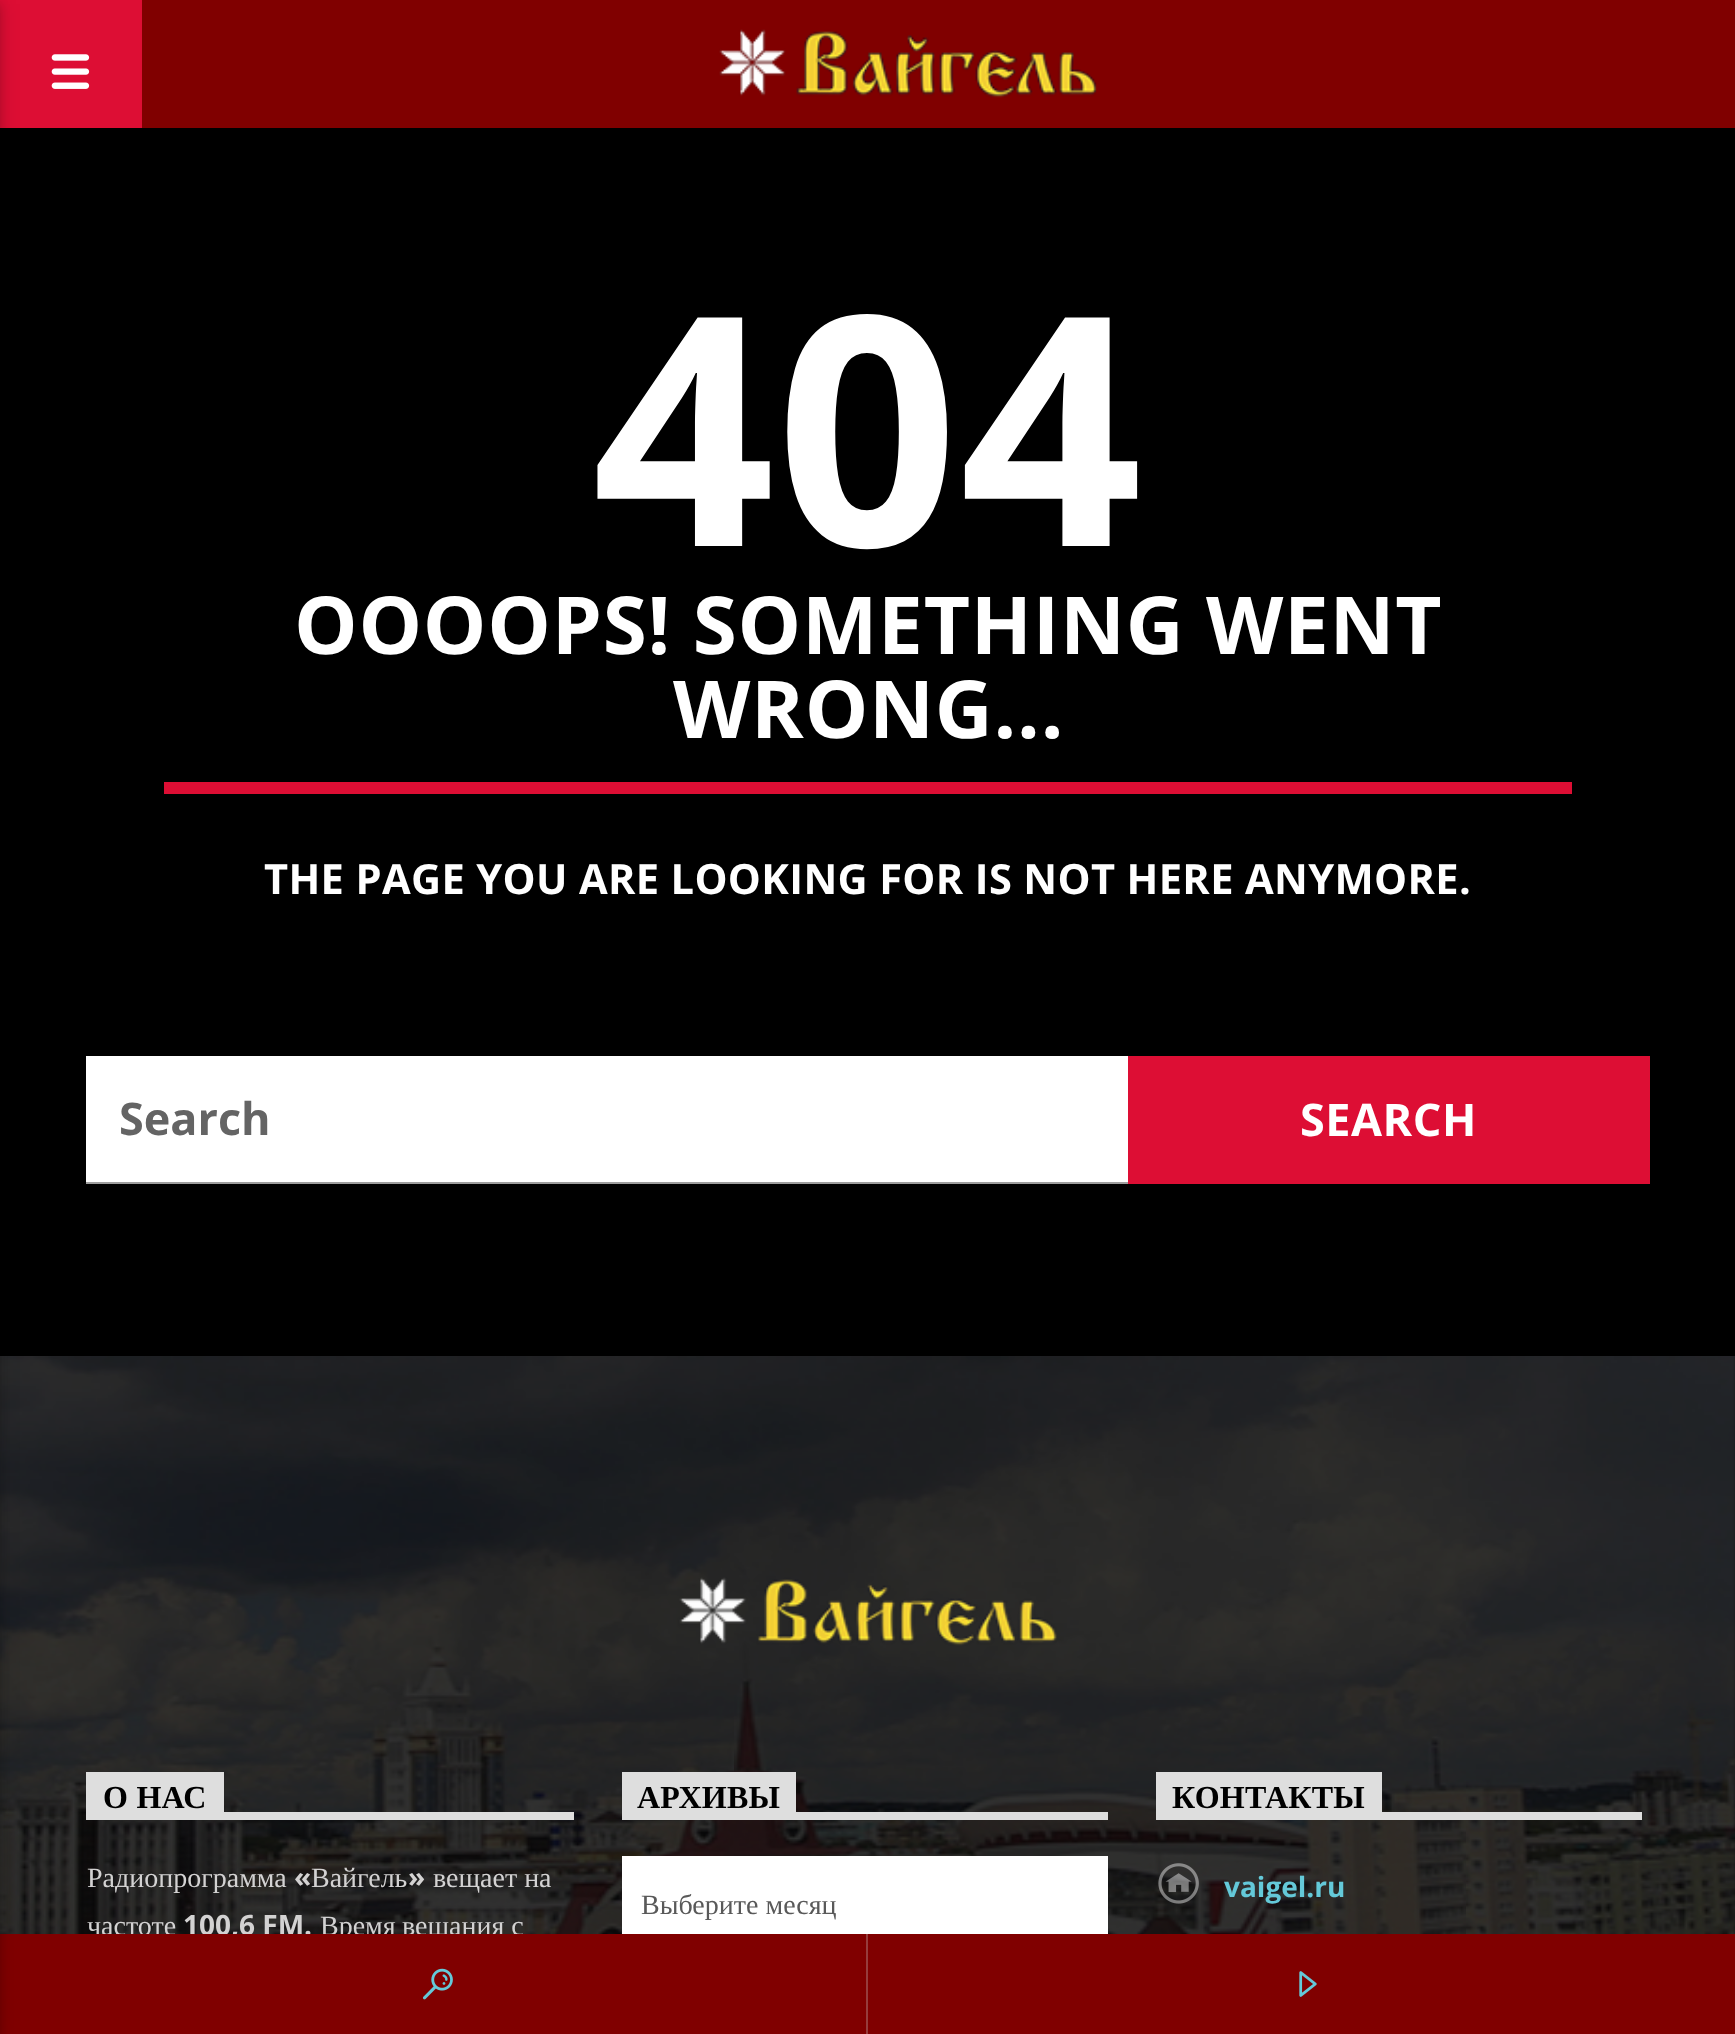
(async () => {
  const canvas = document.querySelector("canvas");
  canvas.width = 1735;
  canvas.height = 2034;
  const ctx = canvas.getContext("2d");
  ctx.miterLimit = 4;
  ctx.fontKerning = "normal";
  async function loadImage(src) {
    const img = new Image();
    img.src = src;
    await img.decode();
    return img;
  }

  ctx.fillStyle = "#000000";
  ctx.fillRect(0, 0, 1735, 2034);
  ctx.fillStyle = "#800000";
  ctx.fillRect(142, 0, 1593, 128);
  ctx.fillStyle = "#dd0e34";
  ctx.fillRect(0, 0, 142, 128);
  ctx.drawImage(await loadImage("img/1.png"), 51, 54, 39, 35);
  ctx.drawImage(await loadImage("img/2.png"), 719, 29, 378, 69);
  for (const [x, y, w, h, color] of [
    [164, 782, 1408, 12, "#dd0e34"],
    [86, 1056, 1042, 126, "#ffffff"],
    [86, 1182, 1042, 2, "#9e9e9e"],
    [1128, 1056, 522, 128, "#dd0e34"],
    [0, 1356, 1735, 578, "#101010"],
  ]) {
    ctx.fillStyle = color;
    ctx.fillRect(x, y, w, h);
  }
  ctx.drawImage(await loadImage("img/3.png"), 0, 1356, 1735, 578);
  ctx.drawImage(await loadImage("img/4.png"), 679, 1577, 378, 69);
  for (const [x, y, w, h, color] of [
    [86, 1812, 488, 8, "#dedede"],
    [86, 1772, 138, 40, "#dedede"],
    [622, 1812, 486, 8, "#dedede"],
    [622, 1772, 174, 40, "#dedede"],
    [622, 1856, 486, 78, "#ffffff"],
    [1156, 1812, 486, 8, "#dedede"],
    [1156, 1772, 226, 40, "#dedede"],
  ]) {
    ctx.fillStyle = color;
    ctx.fillRect(x, y, w, h);
  }
  ctx.drawImage(await loadImage("img/5.png"), 1158, 1863, 41, 41);
  ctx.letterSpacing = "0.75px";
  ctx.font = "bold 320px Open Sans";
  ctx.fillStyle = "#ffffff";
  ctx.fillText("404", 592, 546);
  ctx.font = "bold 80px Open Sans";
  ctx.fillText("OOOOPS! SOMETHING WENT", 294, 654);
  ctx.fillText("WRONG...", 673, 738);
  ctx.letterSpacing = "0.35px";
  ctx.font = "bold 41.6px Open Sans";
  ctx.fillText("THE PAGE YOU ARE LOOKING FOR IS NOT HERE ANYMORE.", 264, 894);
  ctx.letterSpacing = "0px";
  ctx.font = "bold 45px Open Sans";
  ctx.fillStyle = "#646464";
  ctx.fillText("Search", 119, 1135);
  ctx.letterSpacing = "0.5px";
  ctx.fillStyle = "#ffffff";
  ctx.fillText("SEARCH", 1300, 1136);
  ctx.letterSpacing = "0.25px";
  ctx.font = "bold 32px Liberation Serif";
  ctx.fillStyle = "#000000";
  ctx.fillText("О НАС", 103, 1808);
  ctx.letterSpacing = "0px";
  ctx.font = "28px Liberation Serif";
  ctx.fillStyle = "#d3d2d2";
  ctx.fillText("Радиопрограмма", 87, 1887);
  ctx.font = "bold 28px Open Sans";
  ctx.fillText("«", 294, 1887);
  ctx.font = "28px Liberation Serif";
  ctx.fillText("Вайгель", 311, 1887);
  ctx.font = "bold 28px Open Sans";
  ctx.fillText("»", 408, 1887);
  ctx.font = "28px Liberation Serif";
  ctx.fillText("вещает на", 433, 1887);
  ctx.fillText("частоте", 87, 1935);
  ctx.font = "bold 28px Open Sans";
  ctx.fillText("100,6 FM.", 183, 1935);
  ctx.font = "28px Liberation Serif";
  ctx.fillText("Время", 320, 1935);
  ctx.fillText("вещания с", 402, 1935);
  ctx.letterSpacing = "0.25px";
  ctx.font = "bold 32px Liberation Serif";
  ctx.fillStyle = "#000000";
  ctx.fillText("АРХИВЫ", 637, 1808);
  ctx.letterSpacing = "0px";
  ctx.font = "28px Liberation Serif";
  ctx.fillStyle = "#595959";
  ctx.fillText("Выберите месяц", 641, 1914);
  ctx.letterSpacing = "0.25px";
  ctx.font = "bold 32px Liberation Serif";
  ctx.fillStyle = "#000000";
  ctx.fillText("КОНТАКТЫ", 1172, 1808);
  ctx.letterSpacing = "0px";
  ctx.font = "bold 28px Open Sans";
  ctx.fillStyle = "#64c9d9";
  ctx.fillText("vaigel.ru", 1224, 1897);
  ctx.fillStyle = "#800000";
  ctx.fillRect(0, 1934, 1735, 100);
  ctx.fillStyle = "rgba(0, 0, 0, 0.16)";
  ctx.filter = "blur(5px)";
  ctx.beginPath();
  ctx.rect(-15, 4, 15, 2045);
  ctx.fill();
  ctx.filter = "none";
  ctx.fillStyle = "rgba(0, 0, 0, 0.12)";
  ctx.filter = "blur(10px)";
  ctx.beginPath();
  ctx.rect(-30, 4, 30, 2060);
  ctx.fill();
  ctx.filter = "none";
  ctx.fillStyle = "#963c3c";
  ctx.fillRect(866, 1934, 2, 100);
  ctx.drawImage(await loadImage("img/6.png"), 423, 1968, 30, 32);
  ctx.drawImage(await loadImage("img/7.png"), 1299, 1971, 18, 26);
})();
